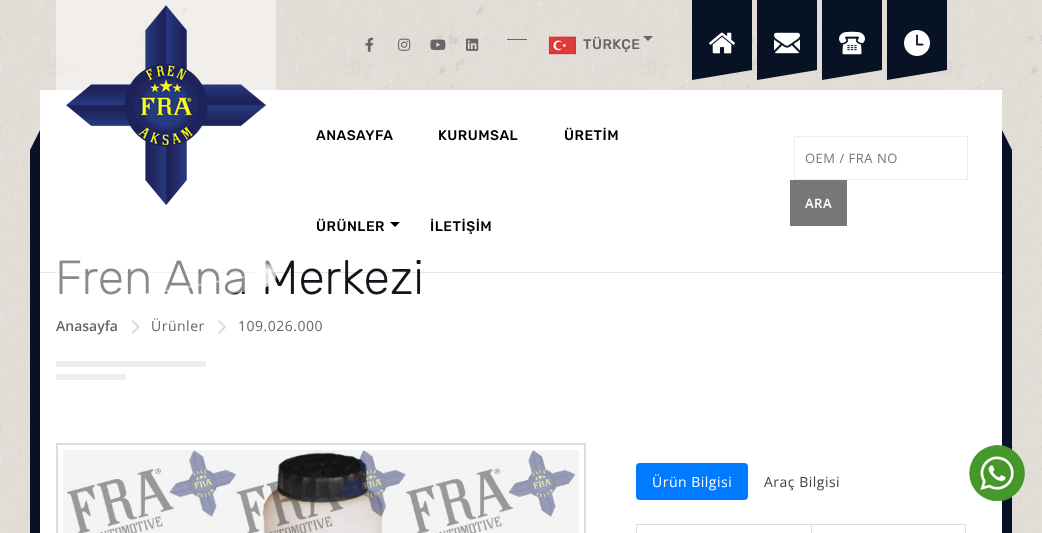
(async () => {
  const canvas = document.querySelector("canvas");
  canvas.width = 1042;
  canvas.height = 533;
  const ctx = canvas.getContext("2d");
  ctx.miterLimit = 4;
  ctx.fontKerning = "normal";
  async function loadImage(src) {
    const img = new Image();
    img.src = src;
    await img.decode();
    return img;
  }
  let path;

  ctx.fillStyle = "#ffffff";
  ctx.fillRect(0, 0, 1042, 533);
  ctx.fillStyle = "#e2ddd6";
  ctx.fillRect(0, 0, 1042, 90);
  ctx.drawImage(await loadImage("img/1.png"), 0, 0, 1042, 90);
  ctx.fillRect(0, 90, 40, 443);
  ctx.drawImage(await loadImage("img/2.png"), 0, 90, 40, 443);
  ctx.fillRect(1002, 90, 40, 443);
  ctx.drawImage(await loadImage("img/2.png"), 1002, 90, 40, 443);
  ctx.drawImage(await loadImage("img/3.png"), 365, 37, 9, 15);
  ctx.drawImage(await loadImage("img/4.png"), 398, 38, 13, 13);
  ctx.drawImage(await loadImage("img/5.png"), 430, 39, 16, 11);
  ctx.drawImage(await loadImage("img/6.png"), 466, 38, 13, 13);
  ctx.fillStyle = "#666666";
  ctx.fillRect(507, 39, 20, 1);
  ctx.drawImage(await loadImage("img/7.png"), 548, 36, 28, 19);
  path = new Path2D("M643 36H653L648 41Z");
  ctx.fill(path);
  ctx.fillStyle = "#081225";
  ctx.fillRect(692, 0, 60, 70);
  ctx.drawImage(await loadImage("img/8.png"), 709, 32, 26, 22);
  path = new Path2D("M692 70H752L692 80Z");
  ctx.fill(path);
  ctx.fillRect(757, 0, 60, 70);
  ctx.drawImage(await loadImage("img/9.png"), 774, 32, 26, 22);
  path = new Path2D("M757 70H817L757 80Z");
  ctx.fill(path);
  ctx.fillRect(822, 0, 60, 70);
  ctx.drawImage(await loadImage("img/10.png"), 839, 31, 26, 24);
  path = new Path2D("M822 70H882L822 80Z");
  ctx.fill(path);
  ctx.fillRect(887, 0, 60, 70);
  ctx.drawImage(await loadImage("img/11.png"), 904, 30, 26, 26);
  path = new Path2D("M887 70H947L887 80Z");
  ctx.fill(path);
  ctx.fillStyle = "rgba(0, 0, 0, 0.1)";
  ctx.fillRect(40, 272, 962, 1);
  ctx.fillStyle = "#000000";
  path = new Path2D("M390 222H400L395 227Z");
  ctx.fill(path);
  ctx.strokeStyle = "#eeeeee";
  ctx.strokeRect(794.5, 136.5, 173, 43);
  ctx.fillStyle = "#777777";
  ctx.fillRect(790, 180, 57, 46);
  ctx.fillStyle = "#dddddd";
  path = new Path2D("M139.5 327.5L133 334L131.5 332.5L138 326Z");
  ctx.fill(path);
  path = new Path2D("M133 320L139.5 326.5L138 328L131.5 321.5Z");
  ctx.fill(path);
  path = new Path2D("M226 327.5L219.5 334L218 332.5L224.5 326Z");
  ctx.fill(path);
  path = new Path2D("M219.5 320L226 326.5L224.5 328L218 321.5Z");
  ctx.fill(path);
  ctx.fillStyle = "#eeeeee";
  ctx.fillRect(56, 361, 150, 6);
  ctx.fillRect(56, 374, 70, 6);
  ctx.strokeStyle = "#dddddd";
  ctx.lineWidth = 2;
  ctx.strokeRect(57, 444, 528, 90);
  ctx.drawImage(await loadImage("img/13.png"), 63, 450, 516, 83);
  ctx.fillStyle = "#007bff";
  ctx.beginPath();
  ctx.roundRect(636, 463, 112, 37, 4);
  ctx.fill();
  for (const [x, y, w, h, color] of [
    [636, 524, 330, 1, "#dddddd"],
    [965, 524, 1, 9, "#dddddd"],
    [636, 524, 1, 9, "#dddddd"],
    [811, 524, 1, 9, "#dddddd"],
    [30, 150, 10, 383, "#081225"],
  ]) {
    ctx.fillStyle = color;
    ctx.fillRect(x, y, w, h);
  }
  path = new Path2D("M40 150H30L40 130Z");
  ctx.fill(path);
  ctx.fillRect(1002, 150, 10, 383);
  path = new Path2D("M1002 150V130L1012 150Z");
  ctx.fill(path);
  ctx.drawImage(await loadImage("img/14.png"), 969, 445, 56, 56);
  ctx.letterSpacing = "0.5px";
  ctx.font = "500 14px Rubik";
  ctx.fillStyle = "#666666";
  ctx.fillText("TÜRKÇE", 583, 49);
  ctx.fillStyle = "#000000";
  for (const [text, x, y] of [
    ["ANASAYFA", 316, 140],
    ["KURUMSAL", 438, 140],
    ["ÜRETİM", 564, 140],
    ["ÜRÜNLER", 316, 231],
    ["İLETİŞİM", 430, 231],
  ]) {
    ctx.fillText(text, x, y);
  }
  ctx.font = "13px Open Sans";
  ctx.fillStyle = "#757575";
  ctx.fillText("OEM / FRA NO", 805, 163);
  ctx.font = "600 13px Open Sans";
  ctx.fillStyle = "#ffffff";
  ctx.fillText("ARA", 805, 208);
  ctx.letterSpacing = "0px";
  ctx.font = "300 48px Rubik";
  ctx.fillStyle = "#14141c";
  ctx.fillText("Fren Ana Merkezi", 55, 294);
  ctx.fillStyle = "rgba(255, 255, 255, 0.5)";
  ctx.fillRect(56, 0, 220, 272);
  ctx.drawImage(await loadImage("img/12.png"), 66, 5, 200, 200);
  path = new Path2D("M56 272H276L56 312Z");
  ctx.fill(path);
  ctx.font = "600 14px Open Sans";
  ctx.fillStyle = "#666666";
  ctx.fillText("Anasayfa", 56, 331);
  ctx.letterSpacing = "0.5px";
  ctx.font = "14px Open Sans";
  ctx.fillText("Ürünler", 151, 331);
  ctx.fillText("109.026.000", 238, 331);
  ctx.fillStyle = "rgba(255, 255, 255, 0.5)";
  path = new Path2D("M66 307L263 273L266 288L69 322Z");
  ctx.fill(path);
  ctx.beginPath();
  ctx.ellipse(265, 277, 11, 10, 0, 0, Math.PI * 2);
  ctx.fill();
  ctx.beginPath();
  ctx.ellipse(265, 274, 11, 10, 0, 0, Math.PI * 2);
  ctx.fill();
  ctx.beginPath();
  ctx.ellipse(262, 278, 11, 10, 0, 0, Math.PI * 2);
  ctx.fill();
  ctx.beginPath();
  ctx.arc(66, 313, 10, 0, Math.PI * 2);
  ctx.fill();
  ctx.fillStyle = "#ffffff";
  ctx.fillText("Ürün Bilgisi", 652, 487);
  ctx.fillStyle = "#424242";
  ctx.fillText("Araç Bilgisi", 764, 487);
})();
